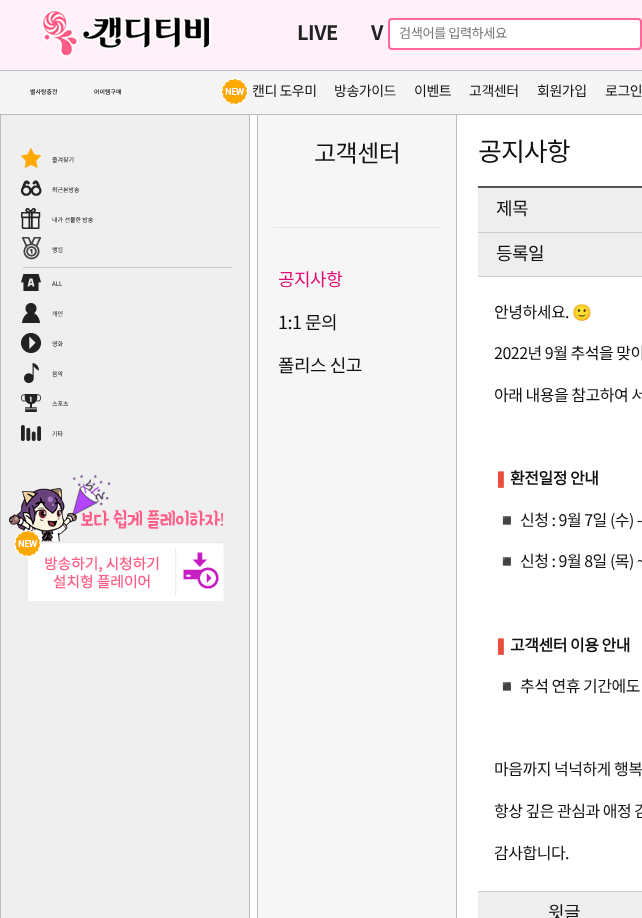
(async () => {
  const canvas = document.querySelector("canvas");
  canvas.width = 642;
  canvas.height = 918;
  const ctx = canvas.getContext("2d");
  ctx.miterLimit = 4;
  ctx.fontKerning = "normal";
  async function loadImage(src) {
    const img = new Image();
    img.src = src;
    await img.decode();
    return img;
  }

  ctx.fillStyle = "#ffffff";
  ctx.fillRect(0, 0, 642, 918);
  ctx.fillStyle = "#fff0f9";
  ctx.fillRect(0, 0, 642, 70);
  ctx.drawImage(await loadImage("img/1.png"), 42, 9, 169, 48);
  ctx.fillStyle = "#ffffff";
  ctx.beginPath();
  ctx.roundRect(389, 19, 252, 30, 3);
  ctx.fill();
  ctx.strokeStyle = "#ff6699";
  ctx.lineWidth = 2;
  ctx.stroke();
  for (const [x, y, w, h, color] of [
    [0, 71, 642, 43, "#f5f5f5"],
    [0, 70, 642, 1, "#bcbcbc"],
    [0, 114, 642, 1, "#bcbcbc"],
  ]) {
    ctx.fillStyle = color;
    ctx.fillRect(x, y, w, h);
  }
  ctx.drawImage(await loadImage("img/2.png"), 221, 78, 27, 27);
  for (const [x, y, w, h, color] of [
    [1, 115, 248, 803, "#efefef"],
    [249, 115, 1, 803, "#bcbcbc"],
    [0, 115, 1, 803, "#bcbcbc"],
  ]) {
    ctx.fillStyle = color;
    ctx.fillRect(x, y, w, h);
  }
  ctx.drawImage(await loadImage("img/3.png"), 21, 148, 20, 20);
  ctx.drawImage(await loadImage("img/4.png"), 21, 180, 21, 16);
  ctx.drawImage(await loadImage("img/5.png"), 21, 208, 20, 21);
  ctx.drawImage(await loadImage("img/6.png"), 22, 237, 19, 23);
  ctx.fillStyle = "#cccccc";
  ctx.fillRect(23, 267, 209, 1);
  ctx.drawImage(await loadImage("img/7.png"), 21, 274, 20, 17);
  ctx.drawImage(await loadImage("img/8.png"), 22, 303, 18, 20);
  ctx.drawImage(await loadImage("img/9.png"), 21, 333, 20, 20);
  ctx.drawImage(await loadImage("img/10.png"), 24, 363, 15, 20);
  ctx.drawImage(await loadImage("img/11.png"), 21, 394, 20, 18);
  ctx.drawImage(await loadImage("img/12.png"), 21, 425, 20, 16);
  ctx.drawImage(await loadImage("img/13.png"), 9, 475, 215, 126);
  for (const [x, y, w, h, color] of [
    [258, 115, 198, 803, "#f6f6f6"],
    [456, 115, 1, 803, "#bcbcbc"],
    [257, 115, 1, 803, "#bcbcbc"],
    [273, 227, 168, 1, "#e5e5e5"],
    [478, 186, 164, 2, "#555555"],
    [478, 188, 164, 44, "#eeeeee"],
    [478, 233, 164, 43, "#eeeeee"],
    [478, 232, 164, 1, "#cccccc"],
    [478, 276, 164, 1, "#cccccc"],
    [478, 892, 164, 26, "#eeeeee"],
    [478, 891, 164, 1, "#cccccc"],
  ]) {
    ctx.fillStyle = color;
    ctx.fillRect(x, y, w, h);
  }
  ctx.letterSpacing = "-0.5px";
  ctx.font = "bold 20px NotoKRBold";
  ctx.fillStyle = "#222222";
  ctx.fillText("LIVE", 297, 40);
  ctx.fillText("V", 371, 40);
  ctx.font = "13.25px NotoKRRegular";
  ctx.fillStyle = "#757575";
  ctx.fillText("검색어를 입력하세요", 399, 38);
  ctx.letterSpacing = "0px";
  ctx.font = "500 6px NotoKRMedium";
  ctx.fillStyle = "#111111";
  ctx.fillText("별사탕충전", 30, 94);
  ctx.fillText("아이템구매", 94, 94);
  ctx.letterSpacing = "-0.5px";
  ctx.font = "14px NotoKRRegular";
  for (const [text, x, y] of [
    ["캔디 도우미", 252, 96],
    ["방송가이드", 334, 96],
    ["이벤트", 414, 96],
    ["고객센터", 469, 96],
    ["회원가입", 537, 96],
    ["로그인", 605, 96],
  ]) {
    ctx.fillText(text, x, y);
  }
  ctx.letterSpacing = "0px";
  ctx.font = "6px NotoKRRegular";
  for (const [text, x, y] of [
    ["즐겨찾기", 52, 162],
    ["최근본방송", 52, 192],
    ["내가 선물한 방송", 52, 222],
    ["랭킹", 52, 252],
    ["ALL", 52, 286],
    ["개인", 52, 316],
    ["영화", 52, 346],
    ["음악", 52, 376],
    ["스포츠", 52, 406],
    ["기타", 52, 436],
  ]) {
    ctx.fillText(text, x, y);
  }
  ctx.letterSpacing = "-0.5px";
  ctx.font = "24px NotoKRRegular";
  ctx.fillText("고객센터", 314, 162);
  ctx.font = "18px NotoKRRegular";
  ctx.fillStyle = "#e10c72";
  ctx.fillText("공지사항", 278, 286);
  ctx.fillStyle = "#111111";
  ctx.fillText("1:1 문의", 278, 329);
  ctx.fillText("폴리스 신고", 278, 372);
  ctx.letterSpacing = "-1px";
  ctx.font = "26px NotoKRRegular";
  ctx.fillText("공지사항", 478, 161);
  ctx.letterSpacing = "-0.5px";
  ctx.font = "18px NotoKRRegular";
  ctx.fillText("제목", 496, 215);
  ctx.fillText("등록일", 496, 260);
  ctx.font = "16px NotoKRRegular";
  ctx.fillText("안녕하세요.", 494, 318);
  ctx.font = "16px Noto Color Emoji";
  ctx.fillText("🙂", 572, 318);
  ctx.font = "16px NotoKRRegular";
  ctx.fillText("2022년 9월 추석을 맞이", 494, 359);
  ctx.fillText("아래 내용을 참고하여 서", 494, 401);
  ctx.font = "bold 16px DejaVu Sans";
  ctx.fillStyle = "#e74c3c";
  ctx.fillText("❚", 494, 484);
  ctx.font = "bold 16px NotoKRRegular";
  ctx.fillStyle = "#111111";
  ctx.fillText("환전일정 안내", 510, 484);
  ctx.font = "16px Noto Color Emoji";
  ctx.fillText("◾", 497, 526);
  ctx.font = "16px NotoKRRegular";
  ctx.fillText("신청 : 9월 7일 (수) -", 520, 526);
  ctx.font = "16px Noto Color Emoji";
  ctx.fillText("◾", 497, 567);
  ctx.font = "16px NotoKRRegular";
  ctx.fillText("신청 : 9월 8일 (목) ~", 520, 567);
  ctx.font = "bold 16px DejaVu Sans";
  ctx.fillStyle = "#e74c3c";
  ctx.fillText("❚", 494, 651);
  ctx.font = "bold 16px NotoKRRegular";
  ctx.fillStyle = "#111111";
  ctx.fillText("고객센터 이용 안내", 510, 651);
  ctx.font = "16px Noto Color Emoji";
  ctx.fillText("◾", 497, 692);
  ctx.font = "16px NotoKRRegular";
  for (const [text, x, y] of [
    ["추석 연휴 기간에도", 520, 692],
    ["마음까지 넉넉하게 행복", 494, 775],
    ["항상 깊은 관심과 애정 감", 494, 817],
    ["감사합니다.", 494, 859],
  ]) {
    ctx.fillText(text, x, y);
  }
  ctx.font = "18px NotoKRRegular";
  ctx.fillText("윗글", 548, 919);
})();
